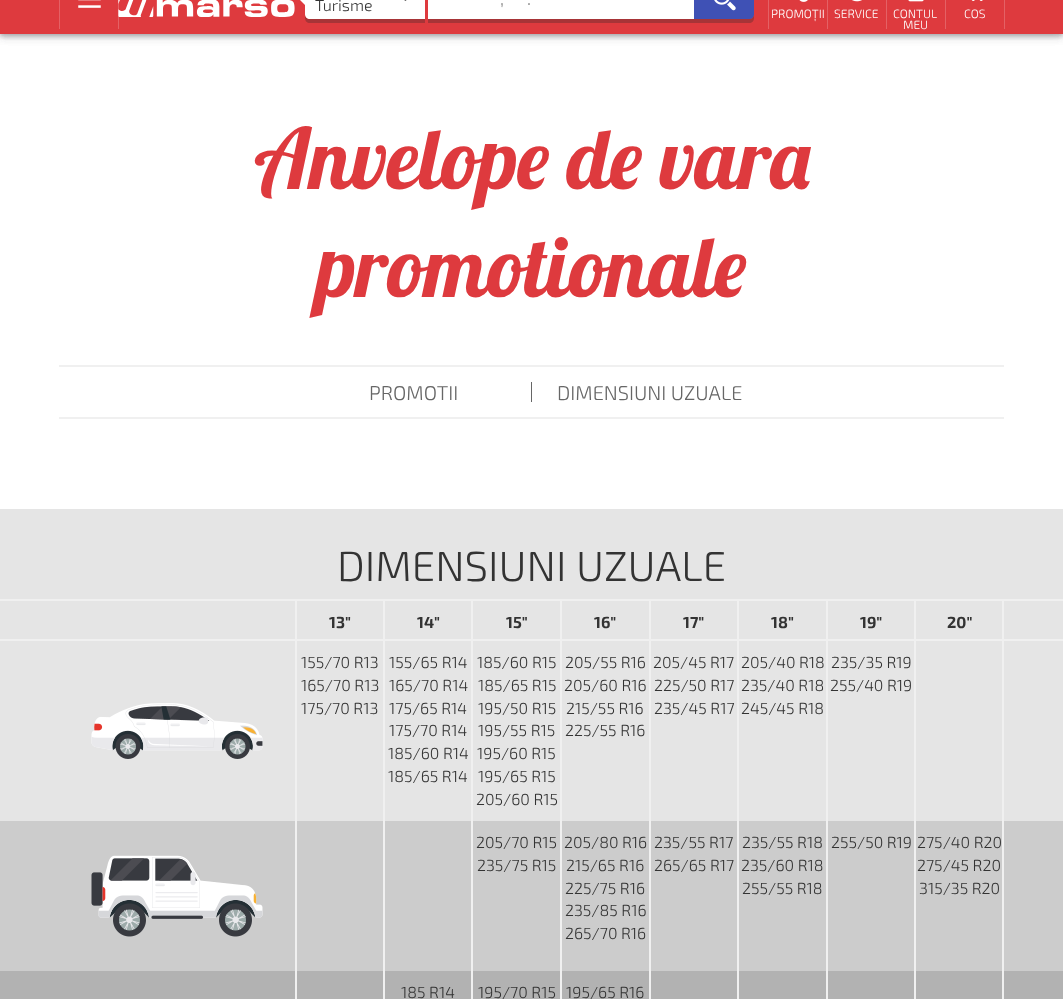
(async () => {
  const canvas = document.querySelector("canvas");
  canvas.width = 1063;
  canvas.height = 999;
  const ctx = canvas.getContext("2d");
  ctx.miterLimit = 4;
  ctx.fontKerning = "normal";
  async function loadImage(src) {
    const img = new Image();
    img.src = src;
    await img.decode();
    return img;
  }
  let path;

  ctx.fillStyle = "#ffffff";
  ctx.fillRect(0, 0, 1063, 999);
  ctx.fillStyle = "rgba(34, 36, 38, 0.15)";
  ctx.filter = "blur(5px)";
  ctx.beginPath();
  ctx.rect(0, -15, 1063, 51);
  ctx.fill();
  ctx.filter = "none";
  ctx.fillStyle = "rgba(34, 36, 38, 0.12)";
  ctx.filter = "blur(2px)";
  ctx.beginPath();
  ctx.rect(0, -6, 1063, 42);
  ctx.fill();
  ctx.filter = "none";
  ctx.fillStyle = "rgba(34, 36, 38, 0.15)";
  ctx.filter = "blur(5px)";
  ctx.beginPath();
  ctx.rect(0, -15, 1063, 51);
  ctx.fill();
  ctx.filter = "none";
  ctx.fillStyle = "rgba(34, 36, 38, 0.12)";
  ctx.filter = "blur(2px)";
  ctx.beginPath();
  ctx.rect(0, -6, 1063, 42);
  ctx.fill();
  ctx.filter = "none";
  for (const [x, y, w, h, color] of [
    [0, 0, 1063, 34, "#de3a3e"],
    [118, 0, 1, 29, "#e46165"],
    [59, 0, 1, 29, "#e46165"],
  ]) {
    ctx.fillStyle = color;
    ctx.fillRect(x, y, w, h);
  }
  ctx.drawImage(await loadImage("img/1.png"), 78, 0, 23, 8);
  ctx.drawImage(await loadImage("img/2.png"), 118, 0, 177, 17);
  ctx.fillStyle = "#a73437";
  path = new Path2D("M305 14V18C305 21 307 23 310 23H425V19H310C307 19 305 17 305 14Z");
  ctx.fill(path);
  ctx.fillStyle = "#ffffff";
  path = new Path2D("M310-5H425V19H310C307 19 305 17 305 14V0C305-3 307-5 310-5Z");
  ctx.fill(path);
  path = new Path2D("M306-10V6L298-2Z");
  ctx.fill(path);
  ctx.drawImage(await loadImage("img/3.png"), 404, 0, 3, 1);
  ctx.fillStyle = "#a73437";
  ctx.fillRect(428, 19, 266, 4);
  ctx.fillStyle = "#ffffff";
  ctx.fillRect(428, 0, 266, 19);
  ctx.fillStyle = "#a73437";
  path = new Path2D("M694 19V23H749C752 23 754 21 754 18V14C754 17 752 19 749 19Z");
  ctx.fill(path);
  ctx.fillStyle = "#3f51b5";
  path = new Path2D("M694-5H749C752-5 754-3 754 0V14C754 17 752 19 749 19H694Z");
  ctx.fill(path);
  ctx.drawImage(await loadImage("img/4.png"), 714, 0, 22, 11);
  ctx.fillStyle = "#e46165";
  ctx.fillRect(827, 0, 1, 29);
  ctx.fillRect(768, 0, 1, 29);
  ctx.drawImage(await loadImage("img/5.png"), 799, 0, 9, 2);
  ctx.fillRect(886, 0, 1, 29);
  ctx.drawImage(await loadImage("img/6.png"), 852, 0, 10, 2);
  ctx.fillRect(945, 0, 1, 29);
  ctx.drawImage(await loadImage("img/7.png"), 908, 0, 16, 2);
  ctx.fillRect(1004, 0, 1, 29);
  ctx.drawImage(await loadImage("img/8.png"), 971, 0, 12, 1);
  for (const [x, y, w, h, color] of [
    [59, 365, 945, 2, "#f0f0f0"],
    [59, 417, 945, 2, "#f0f0f0"],
    [531, 382, 1, 20, "#666666"],
    [0, 509, 1063, 90, "#e5e5e5"],
    [0, 599, 1063, 2, "#f0f0f0"],
    [0, 601, 1063, 38, "#e5e5e5"],
    [383, 601, 2, 38, "#f0f0f0"],
    [295, 601, 2, 38, "#f0f0f0"],
    [471, 601, 2, 38, "#f0f0f0"],
    [560, 601, 2, 38, "#f0f0f0"],
    [649, 601, 2, 38, "#f0f0f0"],
    [737, 601, 2, 38, "#f0f0f0"],
    [826, 601, 2, 38, "#f0f0f0"],
    [914, 601, 2, 38, "#f0f0f0"],
    [1002, 601, 2, 38, "#f0f0f0"],
    [0, 639, 1063, 2, "#f0f0f0"],
    [0, 641, 1063, 180, "#e5e5e5"],
  ]) {
    ctx.fillStyle = color;
    ctx.fillRect(x, y, w, h);
  }
  ctx.drawImage(await loadImage("img/9.png"), 91, 703, 172, 56);
  for (const [x, y, w, h, color] of [
    [383, 641, 2, 180, "#f0f0f0"],
    [0, 821, 1063, 150, "#cccccc"],
    [0, 971, 1063, 28, "#b2b2b2"],
    [295, 641, 2, 358, "#f0f0f0"],
    [471, 641, 2, 180, "#f0f0f0"],
    [560, 641, 2, 180, "#f0f0f0"],
    [649, 641, 2, 180, "#f0f0f0"],
    [737, 641, 2, 180, "#f0f0f0"],
    [826, 641, 2, 180, "#f0f0f0"],
    [914, 641, 2, 180, "#f0f0f0"],
    [1002, 641, 2, 358, "#f0f0f0"],
  ]) {
    ctx.fillStyle = color;
    ctx.fillRect(x, y, w, h);
  }
  ctx.drawImage(await loadImage("img/10.png"), 91, 855, 172, 82);
  for (const [x, y, w, h, color] of [
    [383, 821, 2, 150, "#f0f0f0"],
    [471, 821, 2, 150, "#f0f0f0"],
    [560, 821, 2, 150, "#f0f0f0"],
    [649, 821, 2, 150, "#f0f0f0"],
    [737, 821, 2, 150, "#f0f0f0"],
    [826, 821, 2, 150, "#f0f0f0"],
    [914, 821, 2, 150, "#f0f0f0"],
    [383, 971, 2, 28, "#f0f0f0"],
    [471, 971, 2, 28, "#f0f0f0"],
    [560, 971, 2, 28, "#f0f0f0"],
    [649, 971, 2, 28, "#f0f0f0"],
    [737, 971, 2, 28, "#f0f0f0"],
    [826, 971, 2, 28, "#f0f0f0"],
    [914, 971, 2, 28, "#f0f0f0"],
  ]) {
    ctx.fillStyle = color;
    ctx.fillRect(x, y, w, h);
  }
  ctx.font = "300 16px 'Exo 2'";
  ctx.fillStyle = "#333333";
  ctx.fillText("Turisme", 315, 11);
  ctx.font = "300 18px 'Exo 2'";
  ctx.fillStyle = "#808080";
  ctx.fillText(",", 500, 5);
  ctx.fillText(".", 527, 5);
  ctx.font = "300 12px 'Exo 2'";
  ctx.fillStyle = "#ffffff";
  for (const [text, x, y] of [
    ["PROMOȚII", 771, 18],
    ["SERVICE", 834, 18],
    ["CONTUL", 893, 18],
    ["MEU", 903, 29],
    ["COS", 964, 18],
  ]) {
    ctx.fillText(text, x, y);
  }
  ctx.font = "84px Lobster";
  ctx.fillStyle = "#de3a3e";
  ctx.fillText("Anvelope de vara", 254, 189);
  ctx.fillText("promotionale", 317, 297);
  ctx.font = "300 20px 'Exo 2'";
  ctx.fillStyle = "#666666";
  ctx.fillText("PROMOTII", 369, 400);
  ctx.fillText("DIMENSIUNI UZUALE", 557, 400);
  ctx.font = "300 42px 'Exo 2'";
  ctx.fillStyle = "#333333";
  ctx.fillText("DIMENSIUNI UZUALE", 337, 581);
  ctx.font = "bold 16px 'Exo 2'";
  for (const [text, x, y] of [
    ["13\"", 329, 628],
    ["14\"", 417, 628],
    ["15\"", 506, 628],
    ["16\"", 594, 628],
    ["17\"", 683, 628],
    ["18\"", 771, 628],
    ["19\"", 860, 628],
    ["20\"", 947, 628],
  ]) {
    ctx.fillText(text, x, y);
  }
  ctx.font = "300 16px 'Exo 2'";
  for (const [text, x, y] of [
    ["155/70 R13", 301, 668],
    ["165/70 R13", 301, 691],
    ["175/70 R13", 301, 714],
    ["155/65 R14", 389, 668],
    ["165/70 R14", 389, 691],
    ["175/65 R14", 389, 714],
    ["175/70 R14", 389, 736],
    ["185/60 R14", 388, 759],
    ["185/65 R14", 388, 782],
    ["185/60 R15", 477, 668],
    ["185/65 R15", 478, 691],
    ["195/50 R15", 478, 714],
    ["195/55 R15", 478, 736],
    ["195/60 R15", 477, 759],
    ["195/65 R15", 478, 782],
    ["205/60 R15", 476, 805],
    ["205/55 R16", 565, 668],
    ["205/60 R16", 564, 691],
    ["215/55 R16", 566, 714],
    ["225/55 R16", 565, 736],
    ["205/45 R17", 653, 668],
    ["225/50 R17", 654, 691],
    ["235/45 R17", 654, 714],
    ["205/40 R18", 741, 668],
    ["235/40 R18", 741, 691],
    ["245/45 R18", 741, 714],
    ["235/35 R19", 831, 668],
    ["255/40 R19", 830, 691],
    ["205/70 R15", 476, 848],
    ["235/75 R15", 477, 871],
    ["205/80 R16", 564, 848],
    ["215/65 R16", 566, 871],
    ["225/75 R16", 565, 894],
    ["235/85 R16", 565, 916],
    ["265/70 R16", 565, 939],
    ["235/55 R17", 654, 848],
    ["265/65 R17", 654, 871],
    ["235/55 R18", 742, 848],
    ["235/60 R18", 741, 871],
    ["255/55 R18", 742, 894],
    ["255/50 R19", 831, 848],
    ["275/40 R20", 917, 848],
    ["275/45 R20", 917, 871],
    ["315/35 R20", 919, 894],
    ["185 R14", 401, 998],
    ["195/70 R15", 478, 998],
    ["195/65 R16", 566, 998],
  ]) {
    ctx.fillText(text, x, y);
  }
})();
